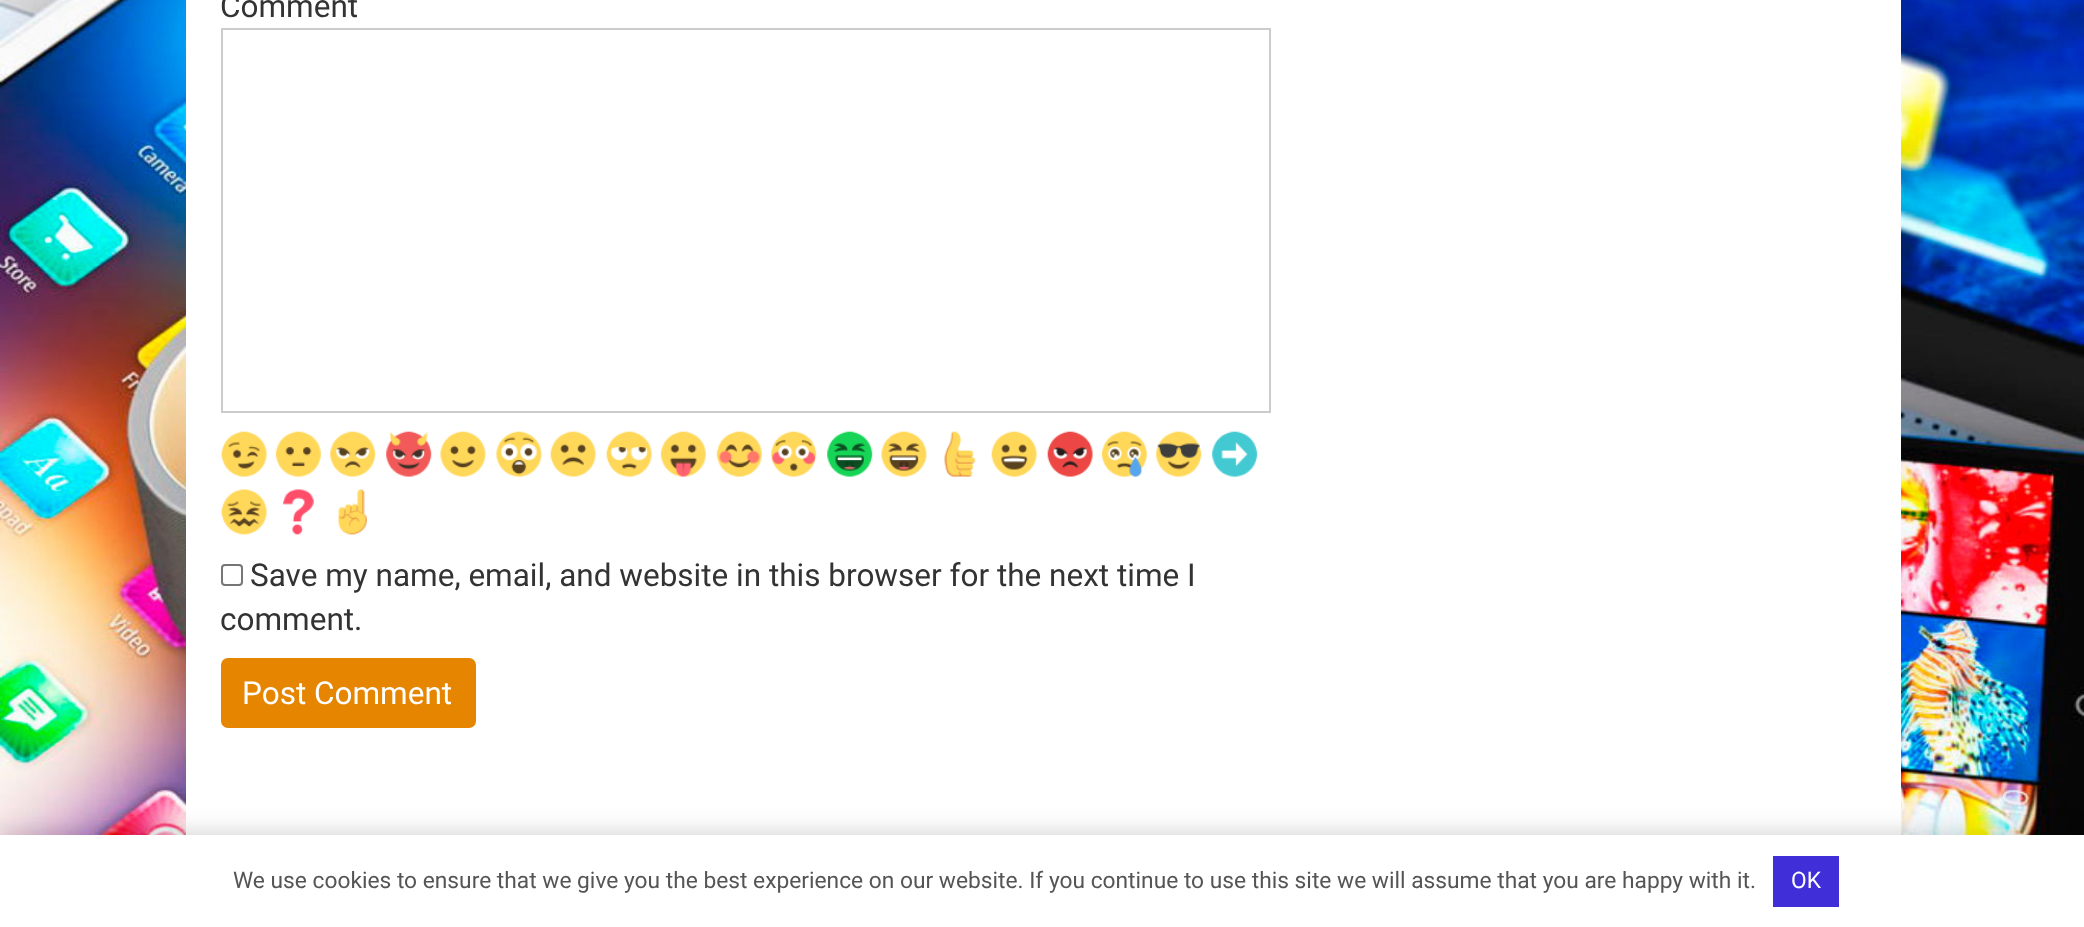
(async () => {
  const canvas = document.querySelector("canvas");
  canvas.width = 2084;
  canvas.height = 927;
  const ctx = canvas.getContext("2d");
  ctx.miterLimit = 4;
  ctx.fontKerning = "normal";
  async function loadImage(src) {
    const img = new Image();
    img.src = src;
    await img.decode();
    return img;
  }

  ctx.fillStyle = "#ffffff";
  ctx.fillRect(0, 0, 2084, 927);
  ctx.drawImage(await loadImage("img/1.png"), 0, 0, 2084, 835);
  ctx.fillRect(186, 0, 1715, 835);
  ctx.strokeStyle = "#cccccc";
  ctx.lineWidth = 2;
  ctx.strokeRect(222, 29, 1048, 383);
  ctx.drawImage(await loadImage("img/2.png"), 221, 431, 46, 46);
  ctx.drawImage(await loadImage("img/3.png"), 275, 431, 46, 46);
  ctx.drawImage(await loadImage("img/4.png"), 330, 431, 46, 46);
  ctx.drawImage(await loadImage("img/5.png"), 386, 431, 46, 46);
  ctx.drawImage(await loadImage("img/6.png"), 440, 431, 46, 46);
  ctx.drawImage(await loadImage("img/7.png"), 496, 431, 46, 46);
  ctx.drawImage(await loadImage("img/8.png"), 550, 431, 46, 46);
  ctx.drawImage(await loadImage("img/9.png"), 606, 431, 46, 46);
  ctx.drawImage(await loadImage("img/10.png"), 660, 431, 46, 46);
  ctx.drawImage(await loadImage("img/11.png"), 716, 431, 46, 46);
  ctx.drawImage(await loadImage("img/12.png"), 771, 431, 46, 46);
  ctx.drawImage(await loadImage("img/13.png"), 827, 431, 46, 46);
  ctx.drawImage(await loadImage("img/14.png"), 881, 431, 46, 46);
  ctx.drawImage(await loadImage("img/15.png"), 944, 431, 32, 46);
  ctx.drawImage(await loadImage("img/16.png"), 991, 431, 46, 46);
  ctx.drawImage(await loadImage("img/17.png"), 1047, 431, 46, 46);
  ctx.drawImage(await loadImage("img/18.png"), 1101, 431, 46, 46);
  ctx.drawImage(await loadImage("img/19.png"), 1156, 431, 46, 46);
  ctx.drawImage(await loadImage("img/20.png"), 1212, 431, 46, 46);
  ctx.drawImage(await loadImage("img/21.png"), 221, 489, 46, 46);
  ctx.drawImage(await loadImage("img/22.png"), 283, 489, 31, 46);
  ctx.drawImage(await loadImage("img/23.png"), 338, 489, 29, 46);
  ctx.beginPath();
  ctx.roundRect(222, 565, 20, 20, 3);
  ctx.strokeStyle = "#767676";
  ctx.stroke();
  ctx.fillStyle = "#e58500";
  ctx.beginPath();
  ctx.roundRect(221, 658, 255, 70, 7);
  ctx.fill();
  ctx.fillStyle = "rgba(0, 0, 0, 0.2)";
  ctx.filter = "blur(13px)";
  ctx.beginPath();
  ctx.rect(0, 835, 2084, 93);
  ctx.fill();
  ctx.filter = "none";
  ctx.fillStyle = "#ffffff";
  ctx.fillRect(0, 835, 2084, 92);
  ctx.fillStyle = "#402fd8";
  ctx.fillRect(1773, 856, 66, 51);
  ctx.font = "31.5px Roboto";
  ctx.fillStyle = "#333333";
  for (const [text, x, y] of [
    ["Comment", 220, 17],
    ["Save my name, email, and website in this browser for the next time I", 250, 586],
    ["comment.", 220, 630],
  ]) {
    ctx.fillText(text, x, y);
  }
  ctx.fillStyle = "#ffffff";
  ctx.fillText("Post Comment", 242, 704);
  ctx.font = "22.75px Roboto";
  ctx.fillStyle = "#555555";
  ctx.fillText("We use cookies to ensure that we give you the best experience on our website. If you continue to use this site we will assume that you are happy with it.", 233, 888);
  ctx.fillStyle = "#ffffff";
  ctx.fillText("OK", 1791, 888);
})();
